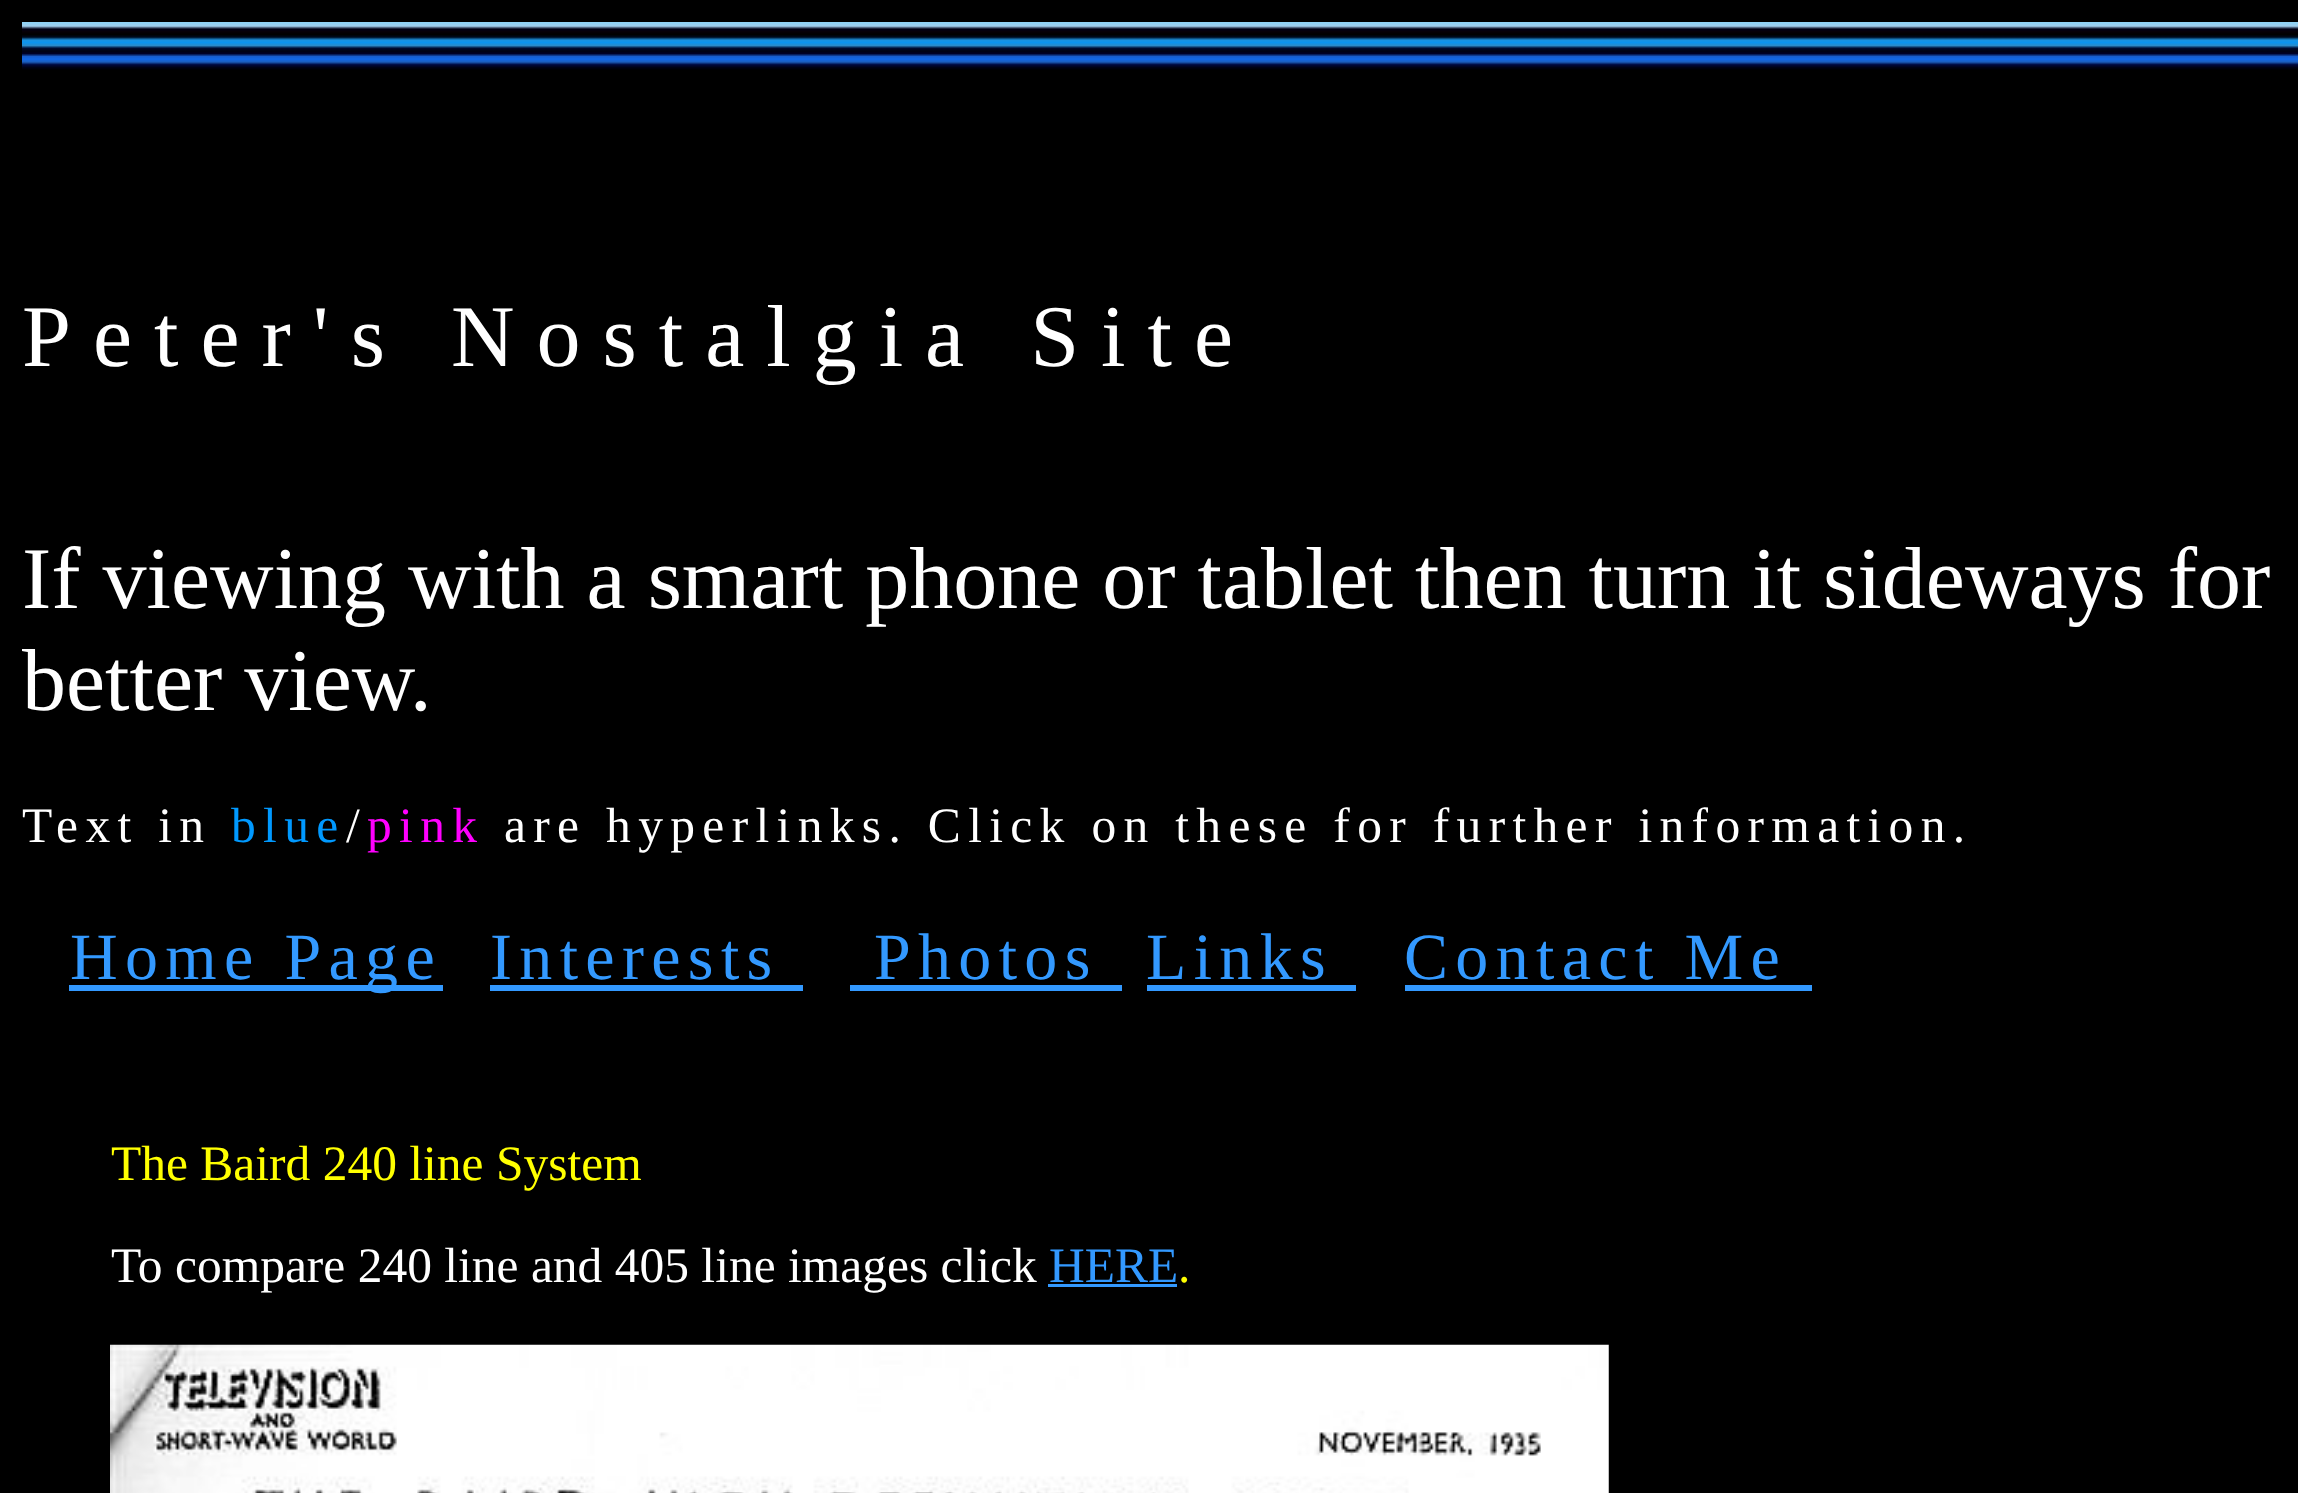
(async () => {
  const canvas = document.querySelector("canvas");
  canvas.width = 2298;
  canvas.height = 1493;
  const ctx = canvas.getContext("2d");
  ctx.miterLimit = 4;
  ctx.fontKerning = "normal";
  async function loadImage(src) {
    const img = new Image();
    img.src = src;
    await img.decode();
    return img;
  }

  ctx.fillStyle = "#000000";
  ctx.fillRect(0, 0, 2298, 1493);
  ctx.drawImage(await loadImage("img/1.png"), 22, 22, 2276, 48);
  for (const [x, y, w, h, color] of [
    [69, 985, 374, 6, "#3399ff"],
    [490, 985, 313, 6, "#3399ff"],
    [850, 985, 272, 6, "#3399ff"],
    [1147, 985, 209, 6, "#3399ff"],
    [1405, 985, 407, 6, "#3399ff"],
    [1048, 1284, 129, 3, "#3399ff"],
  ]) {
    ctx.fillStyle = color;
    ctx.fillRect(x, y, w, h);
  }
  ctx.drawImage(await loadImage("img/2.png"), 110, 1344, 1499, 149);
  ctx.letterSpacing = "22px";
  ctx.font = "88px Liberation Serif";
  ctx.fillStyle = "#ffffff";
  ctx.fillText("Peter's Nostalgia Site", 22, 366);
  ctx.letterSpacing = "0px";
  ctx.fillText("If viewing with a smart phone or tablet then turn it sideways for", 22, 608);
  ctx.fillText("better view.", 22, 710);
  ctx.letterSpacing = "7.33px";
  ctx.font = "49.5px Liberation Serif";
  ctx.fillText("Text in", 22, 842);
  ctx.fillStyle = "#0099ff";
  ctx.fillText("blue", 231, 842);
  ctx.fillStyle = "#ffffff";
  ctx.fillText("/", 346, 842);
  ctx.fillStyle = "#ff00ff";
  ctx.fillText("pink", 367, 842);
  ctx.fillStyle = "#ffffff";
  ctx.fillText("are hyperlinks. Click on these for further information.", 504, 842);
  ctx.font = "66px Liberation Serif";
  ctx.fillStyle = "#3399ff";
  for (const [text, x, y] of [
    ["Home Page", 70, 979],
    ["Interests", 490, 979],
    ["Photos", 874, 979],
    ["Links", 1146, 979],
    ["Contact Me", 1404, 979],
  ]) {
    ctx.fillText(text, x, y);
  }
  ctx.letterSpacing = "0px";
  ctx.font = "49.5px Liberation Serif";
  ctx.fillStyle = "#ffff00";
  ctx.fillText("The Baird 240 line System", 111, 1180);
  ctx.fillStyle = "#ffffff";
  ctx.fillText("To compare 240 line and 405 line images click", 111, 1282);
  ctx.fillStyle = "#3399ff";
  ctx.fillText("HERE", 1049, 1282);
  ctx.fillStyle = "#ffff00";
  ctx.fillText(".", 1178, 1282);
})();
